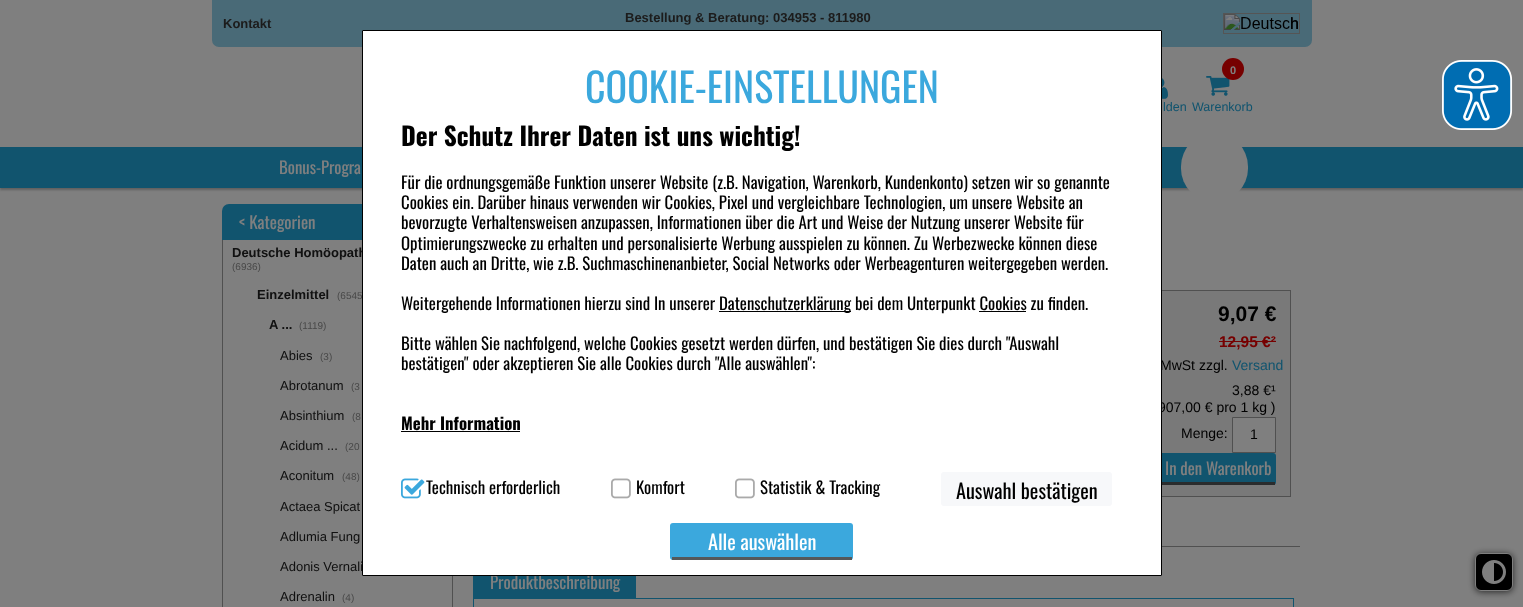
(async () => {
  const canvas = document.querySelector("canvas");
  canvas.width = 1523;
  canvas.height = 607;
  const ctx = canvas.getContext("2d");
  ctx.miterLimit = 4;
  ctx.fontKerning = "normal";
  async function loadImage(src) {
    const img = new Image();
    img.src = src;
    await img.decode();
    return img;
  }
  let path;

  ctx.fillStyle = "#ffffff";
  ctx.fillRect(0, 0, 1523, 607);
  ctx.fillStyle = "#93d4ee";
  ctx.beginPath();
  ctx.roundRect(212, 0, 1100, 47, [0, 0, 7, 7]);
  ctx.fill();
  ctx.strokeStyle = "#aaaaaa";
  ctx.strokeRect(1223.5, 13.5, 76, 20);
  ctx.drawImage(await loadImage("img/1.png"), 1224, 14, 74, 16);
  ctx.fillStyle = "rgba(0, 0, 0, 0.25)";
  ctx.filter = "blur(1px)";
  ctx.beginPath();
  ctx.rect(0, 149, 1523, 41);
  ctx.fill();
  ctx.filter = "none";
  ctx.fillStyle = "#22a8dd";
  ctx.fillRect(0, 147, 1523, 41);
  ctx.fillStyle = "#ffffff";
  ctx.beginPath();
  ctx.roundRect(1181, 133, 67, 69, 33.5);
  ctx.fill();
  ctx.drawImage(await loadImage("img/2.png"), 1162, 78, 6, 21);
  ctx.drawImage(await loadImage("img/3.png"), 1206, 76, 24, 20);
  ctx.fillStyle = "#ed0000";
  ctx.beginPath();
  ctx.arc(1233, 69, 11, 0, Math.PI * 2);
  ctx.fill();
  ctx.fillStyle = "#22a8dd";
  ctx.beginPath();
  ctx.roundRect(222, 204, 231, 36, [7, 7, 0, 0]);
  ctx.fill();
  for (const [x, y, w, h, color] of [
    [452, 576, 1, 31, "#a1a1a1"],
    [222, 240, 1, 367, "#a1a1a1"],
    [1162, 291, 128, 205, "#f2f2f2"],
  ]) {
    ctx.fillStyle = color;
    ctx.fillRect(x, y, w, h);
  }
  ctx.strokeStyle = "#a1a1a1";
  ctx.strokeRect(1035.5, 290.5, 255, 206);
  ctx.fillStyle = "#ed0000";
  ctx.fillRect(1219, 341, 57, 1);
  ctx.fillStyle = "#ffffff";
  ctx.beginPath();
  ctx.rect(1232.5, 417.5, 43, 35);
  ctx.fill();
  ctx.stroke();
  ctx.fillStyle = "#22a8dd";
  ctx.beginPath();
  ctx.roundRect(1131, 453, 145, 32, 3);
  ctx.fill();
  for (const [x, y, w, h, color] of [
    [1162, 482, 113, 3, "#54585a"],
    [1162, 546, 138, 1, "#a1a1a1"],
    [474, 576, 161, 22, "#22a8dd"],
  ]) {
    ctx.fillStyle = color;
    ctx.fillRect(x, y, w, h);
  }
  ctx.strokeStyle = "#22a8dd";
  ctx.strokeRect(473.5, 598.5, 820, 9);
  path = new Path2D("M478 565H631C634 565 636 567 636 570V599H473V570C473 567 475 565 478 565ZM478 566H631C633 566 635 568 635 570V599H474V570C474 568 476 566 478 566Z");
  ctx.fill(path, "evenodd");
  ctx.fillStyle = "#505050";
  ctx.filter = "blur(3.5px)";
  ctx.beginPath();
  ctx.roundRect(1475, 554, 38, 38, 6);
  ctx.fill();
  ctx.filter = "none";
  ctx.fillStyle = "#000000";
  ctx.beginPath();
  ctx.roundRect(1475.5, 553.5, 37, 37, 5.5);
  ctx.fill();
  ctx.strokeStyle = "#ffffff";
  ctx.stroke();
  ctx.drawImage(await loadImage("img/7.png"), 1482, 560, 24, 24);
  ctx.font = "bold 13px Liberation Sans";
  ctx.fillStyle = "#393939";
  ctx.fillText("Kontakt", 223, 28);
  ctx.fillText("Bestellung & Beratung: 034953 - 811980", 625, 22);
  ctx.font = "16px Liberation Sans";
  ctx.fillStyle = "#000000";
  ctx.fillText("h", 1290, 29);
  ctx.font = "16.8px Oswald";
  ctx.fillStyle = "#ffffff";
  ctx.fillText("Bonus-Progra", 279, 174);
  ctx.font = "12.5px Liberation Sans";
  ctx.fillStyle = "#22a8dd";
  ctx.fillText("lden", 1163, 111);
  ctx.font = "bold 11px Liberation Sans";
  ctx.fillStyle = "#ffffff";
  ctx.fillText("0", 1230, 74);
  ctx.font = "12.5px Liberation Sans";
  ctx.fillStyle = "#22a8dd";
  ctx.fillText("Warenkorb", 1192, 111);
  ctx.font = "17px Oswald";
  ctx.fillStyle = "#ffffff";
  ctx.fillText("< Kategorien", 239, 229);
  ctx.font = "bold 13px Liberation Sans";
  ctx.fillStyle = "#222222";
  ctx.fillText("Deutsche Homöopath", 232, 257);
  ctx.font = "10px Liberation Sans";
  ctx.fillStyle = "#919191";
  ctx.fillText("(6936)", 232, 270);
  ctx.font = "bold 13px Liberation Sans";
  ctx.fillStyle = "#222222";
  ctx.fillText("Einzelmittel", 257, 299);
  ctx.font = "10px Liberation Sans";
  ctx.fillStyle = "#919191";
  ctx.fillText("(6545", 337, 299);
  ctx.font = "bold 13px Liberation Sans";
  ctx.fillStyle = "#222222";
  ctx.fillText("A ...", 269, 329);
  ctx.font = "10px Liberation Sans";
  ctx.fillStyle = "#919191";
  ctx.fillText("(1119)", 299, 329);
  ctx.font = "13px Liberation Sans";
  ctx.fillStyle = "#222222";
  ctx.fillText("Abies", 280, 360);
  ctx.font = "10px Liberation Sans";
  ctx.fillStyle = "#919191";
  ctx.fillText("(3)", 320, 360);
  ctx.font = "13px Liberation Sans";
  ctx.fillStyle = "#222222";
  ctx.fillText("Abrotanum", 280, 390);
  ctx.font = "10px Liberation Sans";
  ctx.fillStyle = "#919191";
  ctx.fillText("(3", 351, 390);
  ctx.font = "13px Liberation Sans";
  ctx.fillStyle = "#222222";
  ctx.fillText("Absinthium", 280, 420);
  ctx.font = "10px Liberation Sans";
  ctx.fillStyle = "#919191";
  ctx.fillText("(8", 352, 420);
  ctx.font = "13px Liberation Sans";
  ctx.fillStyle = "#222222";
  ctx.fillText("Acidum ...", 280, 450);
  ctx.font = "10px Liberation Sans";
  ctx.fillStyle = "#919191";
  ctx.fillText("(20", 345, 450);
  ctx.font = "13px Liberation Sans";
  ctx.fillStyle = "#222222";
  ctx.fillText("Aconitum", 280, 480);
  ctx.font = "10px Liberation Sans";
  ctx.fillStyle = "#919191";
  ctx.fillText("(48)", 342, 480);
  ctx.font = "13px Liberation Sans";
  ctx.fillStyle = "#222222";
  for (const [text, x, y] of [
    ["Actaea Spicat", 280, 511],
    ["Adlumia Fung", 280, 541],
    ["Adonis Vernali", 280, 571],
    ["Adrenalin", 280, 601],
  ]) {
    ctx.fillText(text, x, y);
  }
  ctx.font = "10px Liberation Sans";
  ctx.fillStyle = "#919191";
  ctx.fillText("(4)", 342, 601);
  ctx.font = "bold 21px Liberation Sans";
  ctx.fillStyle = "#000000";
  ctx.fillText("9,07 €", 1218, 321);
  ctx.font = "bold 15.5px Liberation Sans";
  ctx.fillStyle = "#ed0000";
  ctx.fillText("12,95 €²", 1219, 347);
  ctx.font = "14px Liberation Sans";
  ctx.fillStyle = "#000000";
  ctx.fillText("MwSt zzgl.", 1160, 370);
  ctx.fillStyle = "#22a8dd";
  ctx.fillText("Versand", 1232, 370);
  ctx.fillStyle = "#000000";
  for (const [text, x, y] of [
    ["3,88 €¹", 1232, 395],
    ["907,00 € pro 1 kg )", 1158, 412],
    ["Menge:", 1181, 438],
    ["1", 1250, 439],
  ]) {
    ctx.fillText(text, x, y);
  }
  ctx.font = "16.8px Oswald";
  ctx.fillStyle = "#ffffff";
  ctx.fillText("In den Warenkorb", 1165, 475);
  ctx.font = "17px Oswald";
  ctx.fillText("Produktbeschreibung", 490, 589);
  ctx.strokeStyle = "rgba(0, 0, 0, 0.5)";
  ctx.lineWidth = 9999;
  ctx.strokeRect(-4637.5, -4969.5, 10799, 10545);
  ctx.drawImage(await loadImage("img/4.png"), 1442, 60, 71, 70);
  ctx.beginPath();
  ctx.rect(362.5, 30.5, 799, 545);
  ctx.fill();
  ctx.strokeStyle = "#000000";
  ctx.lineWidth = 1;
  ctx.stroke();
  ctx.font = "40px Oswald";
  ctx.fillStyle = "#3ba8dd";
  ctx.fillText("COOKIE-EINSTELLUNGEN", 585, 103);
  ctx.font = "bold 25.25px Oswald";
  ctx.fillStyle = "#000000";
  ctx.fillText("Der Schutz Ihrer Daten ist uns wichtig!", 401, 146);
  ctx.font = "16.8px Oswald";
  for (const [text, x, y] of [
    ["Für die ordnungsgemäße Funktion unserer Website (z.B. Navigation, Warenkorb, Kundenkonto) setzen wir so genannte", 401, 189],
    ["Cookies ein. Darüber hinaus verwenden wir Cookies, Pixel und vergleichbare Technologien, um unsere Website an", 401, 209],
    ["bevorzugte Verhaltensweisen anzupassen, Informationen über die Art und Weise der Nutzung unserer Website für", 401, 229],
    ["Optimierungszwecke zu erhalten und personalisierte Werbung ausspielen zu können. Zu Werbezwecke können diese", 401, 250],
    ["Daten auch an Dritte, wie z.B. Suchmaschinenanbieter, Social Networks oder Werbeagenturen weitergegeben werden.", 401, 270],
    ["Weitergehende Informationen hierzu sind In unserer", 401, 310],
  ]) {
    ctx.fillText(text, x, y);
  }
  ctx.fillRect(719, 311, 132, 1);
  ctx.fillText("Datenschutzerklärung bei dem Unterpunkt Cookies zu finden.", 719, 310);
  ctx.fillRect(979, 311, 47, 1);
  ctx.fillText("Bitte wählen Sie nachfolgend, welche Cookies gesetzt werden dürfen, und bestätigen Sie dies durch \"Auswahl", 401, 350);
  ctx.fillText("bestätigen\" oder akzeptieren Sie alle Cookies durch \"Alle auswählen\":", 401, 370);
  ctx.font = "bold 16.8px Oswald";
  ctx.fillText("Mehr Information", 401, 430);
  ctx.fillRect(401, 431, 119, 1);
  ctx.drawImage(await loadImage("img/5.png"), 401, 478, 24, 21);
  ctx.font = "16.8px Oswald";
  ctx.fillText("Technisch erforderlich", 426, 494);
  ctx.drawImage(await loadImage("img/6.png"), 611, 478, 20, 21);
  ctx.fillText("Komfort", 636, 494);
  ctx.drawImage(await loadImage("img/6.png"), 735, 478, 20, 21);
  ctx.fillText("Statistik & Tracking", 760, 494);
  ctx.fillStyle = "#f7f8fa";
  ctx.beginPath();
  ctx.roundRect(941, 472, 171, 34, 3);
  ctx.fill();
  ctx.font = "20.25px Oswald";
  ctx.fillStyle = "#000000";
  ctx.fillText("Auswahl bestätigen", 956, 499);
  ctx.fillStyle = "#3ba8dd";
  ctx.beginPath();
  ctx.roundRect(670, 523, 183, 37, 3);
  ctx.fill();
  ctx.fillStyle = "#54585a";
  ctx.fillRect(672, 557, 180, 3);
  ctx.fillStyle = "#ffffff";
  ctx.fillText("Alle auswählen", 708, 550);
})();
